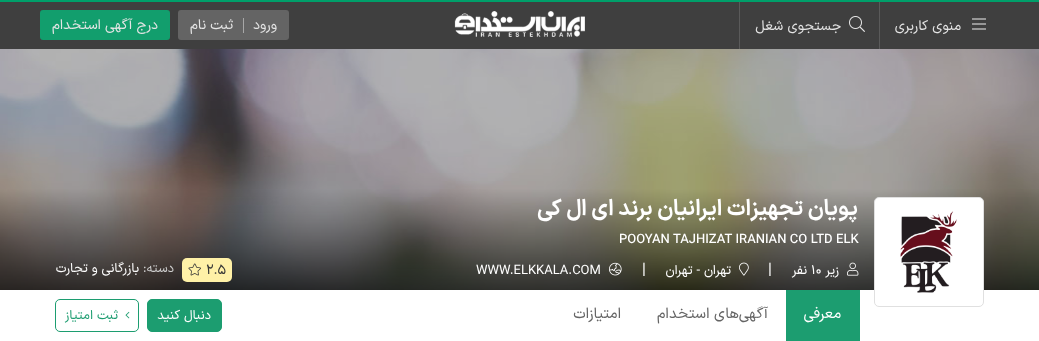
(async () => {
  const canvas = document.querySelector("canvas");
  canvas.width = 1039;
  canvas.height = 341;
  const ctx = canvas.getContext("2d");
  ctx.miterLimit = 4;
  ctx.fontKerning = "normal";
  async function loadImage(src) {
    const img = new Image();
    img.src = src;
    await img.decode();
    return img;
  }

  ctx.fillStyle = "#ffffff";
  ctx.fillRect(0, 0, 1039, 341);
  for (const [x, y, w, h, color] of [
    [0, 0, 1039, 2, "#009f6a"],
    [0, 2, 1039, 47, "#3f3f3f"],
    [879, 2, 1, 47, "#5a5a5a"],
  ]) {
    ctx.fillStyle = color;
    ctx.fillRect(x, y, w, h);
  }
  ctx.drawImage(await loadImage("img/1.png"), 972, 18, 14, 12);
  ctx.fillRect(739, 2, 1, 47);
  ctx.drawImage(await loadImage("img/2.png"), 849, 16, 16, 16);
  ctx.drawImage(await loadImage("img/3.png"), 454, 11, 131, 26);
  ctx.fillStyle = "#646464";
  ctx.beginPath();
  ctx.roundRect(178, 10, 111, 30, 3);
  ctx.fill();
  ctx.fillStyle = "#a7a7a7";
  ctx.fillRect(243, 18, 1, 15);
  ctx.fillStyle = "#129e6d";
  ctx.beginPath();
  ctx.roundRect(40, 10, 130, 30, 3);
  ctx.fill();
  ctx.drawImage(await loadImage("img/4.png"), 0, 49, 1039, 241);
  ctx.fillStyle = "#ffffff";
  ctx.beginPath();
  ctx.roundRect(874.5, 197.5, 109, 109, 4.5);
  ctx.fill();
  ctx.strokeStyle = "#e0e0e0";
  ctx.stroke();
  ctx.drawImage(await loadImage("img/5.png"), 900, 211, 57, 82);
  ctx.drawImage(await loadImage("img/6.png"), 847, 262, 12, 14);
  ctx.drawImage(await loadImage("img/7.png"), 739, 262, 10, 14);
  ctx.drawImage(await loadImage("img/8.png"), 609, 262, 13, 14);
  ctx.fillStyle = "#fff1a7";
  ctx.beginPath();
  ctx.roundRect(182, 258, 50, 24, 5);
  ctx.fill();
  ctx.drawImage(await loadImage("img/9.png"), 188, 263, 13, 13);
  ctx.fillStyle = "#1c9d70";
  ctx.fillRect(786, 290, 74, 51);
  ctx.beginPath();
  ctx.roundRect(147.5, 299.5, 74, 32, 4.5);
  ctx.fill();
  ctx.strokeStyle = "#1c9d70";
  ctx.stroke();
  ctx.beginPath();
  ctx.roundRect(55.5, 299.5, 83, 32, 4.5);
  ctx.stroke();
  ctx.drawImage(await loadImage("img/10.png"), 125, 311, 5, 8);
  ctx.direction = "rtl";
  ctx.font = "14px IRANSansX";
  ctx.fillStyle = "#e5e5e5";
  for (const [text, x, y] of [
    ["منوی کاربری", 961, 30],
    ["جستجوی شغل", 841, 30],
    ["ورود", 277, 29],
    ["ثبت نام", 233, 29],
    ["درج آگهی استخدام", 158, 29],
  ]) {
    ctx.fillText(text, x, y);
  }
  ctx.font = "bold 22px IRANSansX";
  ctx.fillStyle = "#ffffff";
  ctx.fillText("پویان تجهیزات ایرانیان برند ای ال کی", 858, 215);
  ctx.direction = "ltr";
  ctx.font = "500 13px IRANSansX";
  ctx.fillText("POOYAN TAJHIZAT IRANIAN CO LTD ELK", 619, 243);
  ctx.direction = "rtl";
  ctx.font = "13px IRANSansX";
  ctx.fillText("زیر", 839, 274);
  ctx.direction = "ltr";
  ctx.fillText("۱۰", 811, 274);
  ctx.direction = "rtl";
  ctx.fillText("نفر", 807, 274);
  ctx.direction = "ltr";
  ctx.font = "16px IRANSansX";
  ctx.fillText("|", 768, 274);
  ctx.direction = "rtl";
  ctx.font = "13px IRANSansX";
  ctx.fillText("تهران - تهران", 731, 274);
  ctx.direction = "ltr";
  ctx.font = "16px IRANSansX";
  ctx.fillText("|", 642, 274);
  ctx.font = "13px IRANSansX";
  ctx.fillText("WWW.ELKKALA.COM", 476, 274);
  ctx.font = "14px IRANSansX";
  ctx.fillStyle = "#363636";
  ctx.fillText("۲.۵", 206, 274);
  ctx.direction = "rtl";
  ctx.font = "13px IRANSansX";
  ctx.fillStyle = "#cccccc";
  ctx.fillText("دسته:", 174, 272);
  ctx.fillStyle = "#ffffff";
  ctx.fillText("بازرگانی و تجارت", 139, 272);
  ctx.font = "15px IRANSansX";
  ctx.fillText("معرفی", 841, 318);
  ctx.fillStyle = "#646464";
  for (const [text, x, y] of [
    ["آگهی‌ها", 768, 318],
    ["ی استخدام", 725, 318],
    ["امتیازات", 621, 318],
  ]) {
    ctx.fillText(text, x, y);
  }
  ctx.font = "13px IRANSansX";
  ctx.fillStyle = "#ffffff";
  ctx.fillText("دنبال کنید", 211, 319);
  ctx.fillStyle = "#1c9d70";
  ctx.fillText("ثبت امتیاز", 118, 319);
})();
